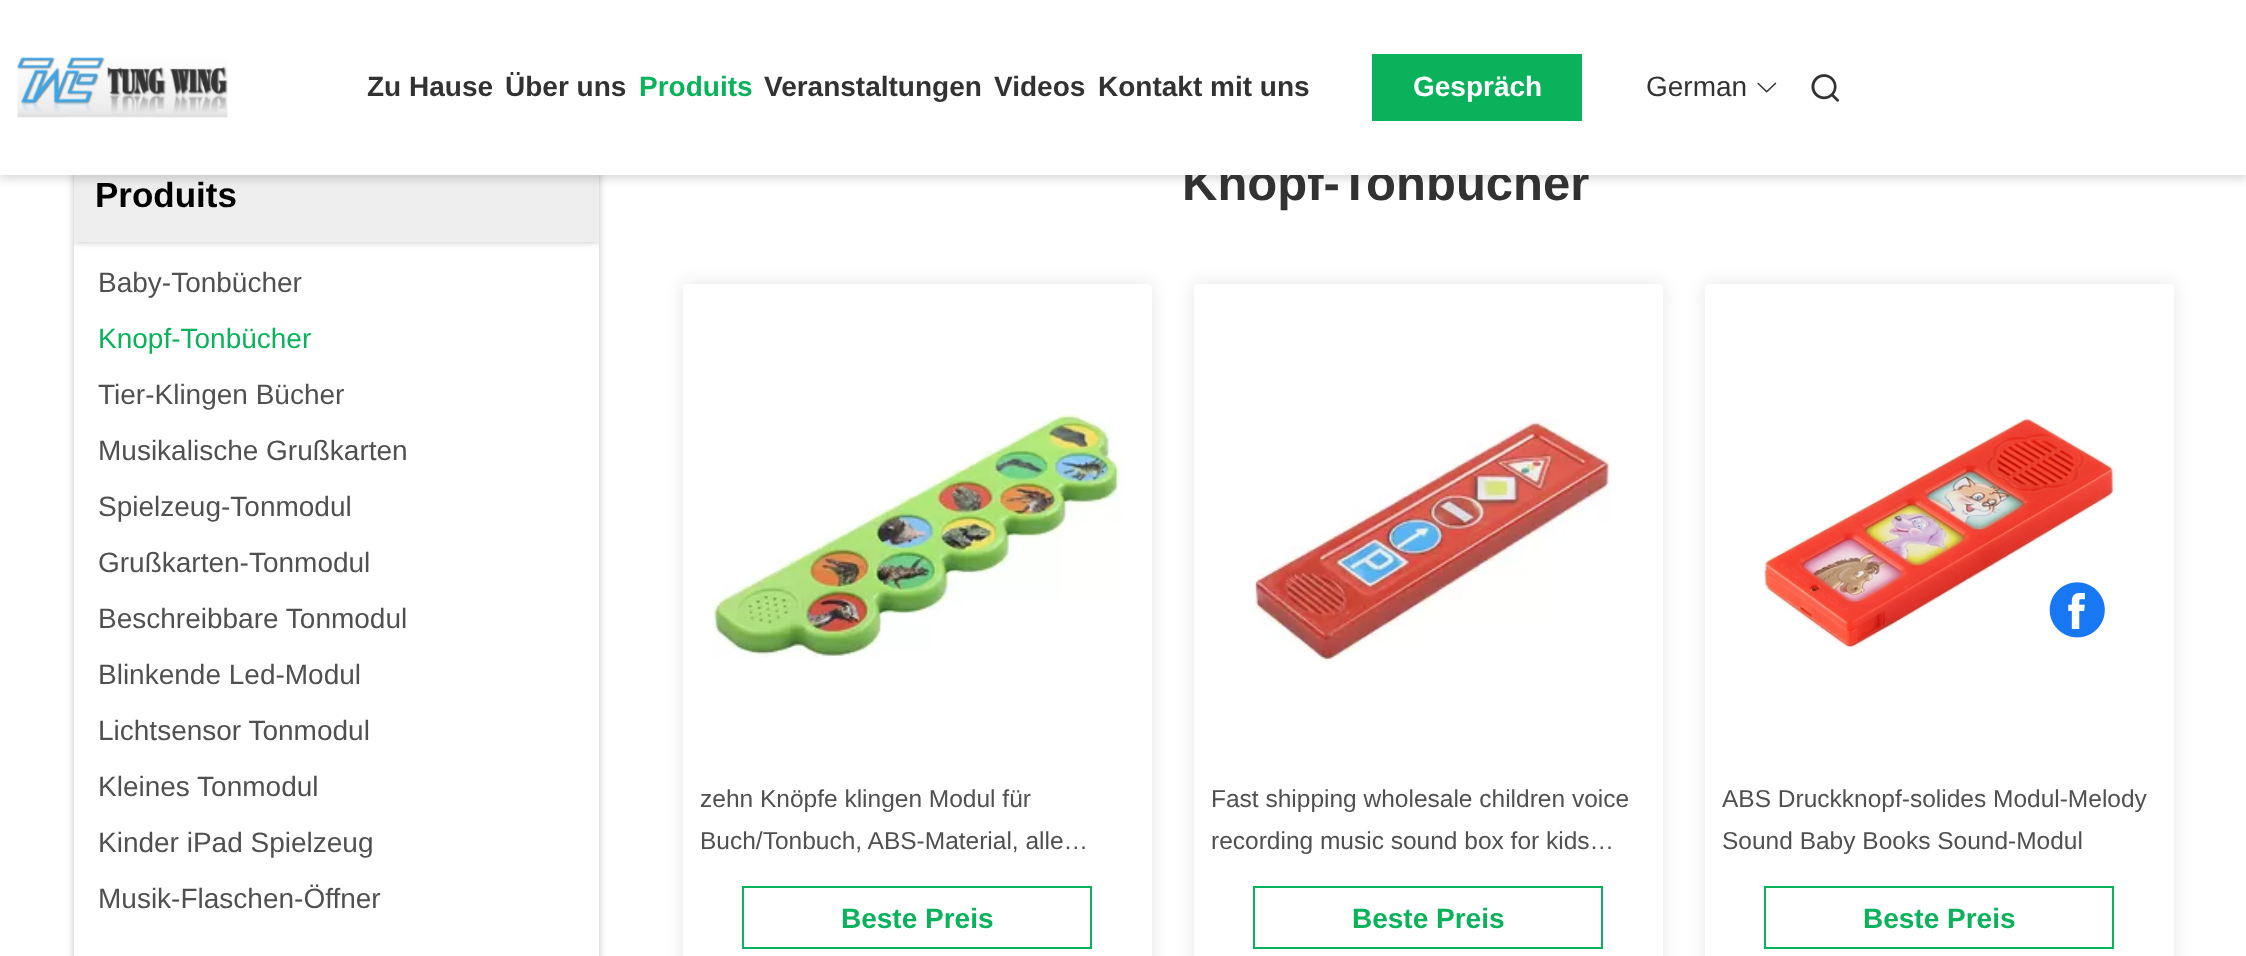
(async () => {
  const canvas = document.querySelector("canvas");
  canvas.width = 2246;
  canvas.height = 956;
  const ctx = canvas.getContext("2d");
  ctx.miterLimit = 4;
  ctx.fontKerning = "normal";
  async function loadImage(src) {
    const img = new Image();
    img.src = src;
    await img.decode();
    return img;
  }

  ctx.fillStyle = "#ffffff";
  ctx.fillRect(0, 0, 2246, 956);
  ctx.fillStyle = "rgba(0, 0, 0, 0.25)";
  ctx.filter = "blur(3.5px)";
  ctx.beginPath();
  ctx.rect(74, 242, 525, 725);
  ctx.fill();
  ctx.filter = "none";
  ctx.fillStyle = "#ffffff";
  ctx.fillRect(74, 242, 525, 714);
  ctx.fillStyle = "rgba(0, 0, 0, 0.25)";
  ctx.filter = "blur(3.5px)";
  ctx.beginPath();
  ctx.rect(74, 147, 525, 95);
  ctx.fill();
  ctx.filter = "none";
  ctx.fillStyle = "#eeeeee";
  ctx.fillRect(74, 175, 525, 67);
  ctx.fillStyle = "rgba(0, 0, 0, 0.15)";
  ctx.filter = "blur(5px)";
  ctx.beginPath();
  ctx.rect(0, 4, 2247, 175);
  ctx.fill();
  ctx.filter = "none";
  ctx.fillStyle = "rgba(0, 0, 0, 0.1)";
  ctx.filter = "blur(9px)";
  ctx.beginPath();
  ctx.roundRect(683, 284, 469, 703, 4);
  ctx.fill();
  ctx.filter = "none";
  ctx.fillStyle = "#ffffff";
  ctx.beginPath();
  ctx.roundRect(683, 284, 469, 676, 4);
  ctx.fill();
  ctx.drawImage(await loadImage("img/4.png"), 712, 406, 412, 252);
  ctx.strokeStyle = "#0ab35b";
  ctx.lineWidth = 2;
  ctx.strokeRect(743, 887, 348, 61);
  ctx.fillStyle = "rgba(0, 0, 0, 0.1)";
  ctx.filter = "blur(9px)";
  ctx.beginPath();
  ctx.roundRect(1194, 284, 469, 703, 4);
  ctx.fill();
  ctx.filter = "none";
  ctx.fillStyle = "#ffffff";
  ctx.beginPath();
  ctx.roundRect(1194, 284, 469, 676, 4);
  ctx.fill();
  ctx.drawImage(await loadImage("img/5.png"), 1250, 418, 361, 246);
  ctx.strokeRect(1254, 887, 348, 61);
  ctx.fillStyle = "rgba(0, 0, 0, 0.1)";
  ctx.filter = "blur(9px)";
  ctx.beginPath();
  ctx.roundRect(1705, 284, 469, 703, 4);
  ctx.fill();
  ctx.filter = "none";
  ctx.fillStyle = "#ffffff";
  ctx.beginPath();
  ctx.roundRect(1705, 284, 469, 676, 4);
  ctx.fill();
  ctx.drawImage(await loadImage("img/6.png"), 1764, 417, 350, 232);
  ctx.strokeRect(1765, 887, 348, 61);
  ctx.drawImage(await loadImage("img/7.png"), 2049, 582, 56, 56);
  ctx.font = "bold 35px Liberation Sans";
  ctx.fillStyle = "#000000";
  ctx.fillText("Produits", 95, 207);
  ctx.font = "28px Liberation Sans";
  ctx.fillStyle = "#505050";
  ctx.fillText("Baby-Tonbücher", 98, 292);
  ctx.fillStyle = "#0ab35b";
  ctx.fillText("Knopf-Tonbücher", 98, 348);
  ctx.fillStyle = "#505050";
  for (const [text, x, y] of [
    ["Tier-Klingen Bücher", 98, 404],
    ["Musikalische Grußkarten", 98, 460],
    ["Spielzeug-Tonmodul", 98, 516],
    ["Grußkarten-Tonmodul", 98, 572],
    ["Beschreibbare Tonmodul", 98, 628],
    ["Blinkende Led-Modul", 98, 684],
    ["Lichtsensor Tonmodul", 98, 740],
    ["Kleines Tonmodul", 98, 796],
    ["Kinder iPad Spielzeug", 98, 852],
    ["Musik-Flaschen-Öffner", 98, 908],
  ]) {
    ctx.fillText(text, x, y);
  }
  ctx.font = "bold 49px Liberation Sans";
  ctx.fillStyle = "#323232";
  ctx.fillText("Knopf-Tonbücher", 1182, 200);
  ctx.fillStyle = "#ffffff";
  ctx.fillRect(0, 0, 2246, 175);
  ctx.drawImage(await loadImage("img/3.png"), 1811, 74, 28, 28);
  ctx.drawImage(await loadImage("img/2.png"), 1757, 82, 20, 11);
  ctx.font = "28px Liberation Sans";
  ctx.fillStyle = "#323232";
  ctx.fillText("German", 1646, 96);
  ctx.font = "bold 28px Liberation Sans";
  for (const [text, x, y] of [
    ["Kontakt mit uns", 1098, 96],
    ["Videos", 994, 96],
    ["Veranstaltungen", 764, 96],
  ]) {
    ctx.fillText(text, x, y);
  }
  ctx.fillStyle = "#0ab35b";
  ctx.fillText("Produits", 639, 96);
  ctx.fillStyle = "#323232";
  ctx.fillText("Über uns", 505, 96);
  ctx.fillText("Zu Hause", 367, 96);
  ctx.fillStyle = "#0ab35b";
  ctx.fillRect(1372, 54, 210, 67);
  ctx.fillStyle = "#ffffff";
  ctx.fillText("Gespräch", 1413, 96);
  ctx.drawImage(await loadImage("img/1.png"), 17, 57, 211, 61);
  ctx.font = "24.5px Liberation Sans";
  ctx.fillStyle = "#505050";
  ctx.fillText("zehn Knöpfe klingen Modul für", 700, 807);
  ctx.fillText("Buch/Tonbuch, ABS-Material, alle…", 700, 849);
  ctx.font = "bold 28px Liberation Sans";
  ctx.fillStyle = "#0ab35b";
  ctx.fillText("Beste Preis", 841, 928);
  ctx.font = "24.5px Liberation Sans";
  ctx.fillStyle = "#505050";
  ctx.fillText("Fast shipping wholesale children voice", 1211, 807);
  ctx.fillText("recording music sound box for kids…", 1211, 849);
  ctx.font = "bold 28px Liberation Sans";
  ctx.fillStyle = "#0ab35b";
  ctx.fillText("Beste Preis", 1352, 928);
  ctx.font = "24.5px Liberation Sans";
  ctx.fillStyle = "#505050";
  ctx.fillText("ABS Druckknopf-solides Modul-Melody", 1722, 807);
  ctx.fillText("Sound Baby Books Sound-Modul", 1722, 849);
  ctx.font = "bold 28px Liberation Sans";
  ctx.fillStyle = "#0ab35b";
  ctx.fillText("Beste Preis", 1863, 928);
})();
